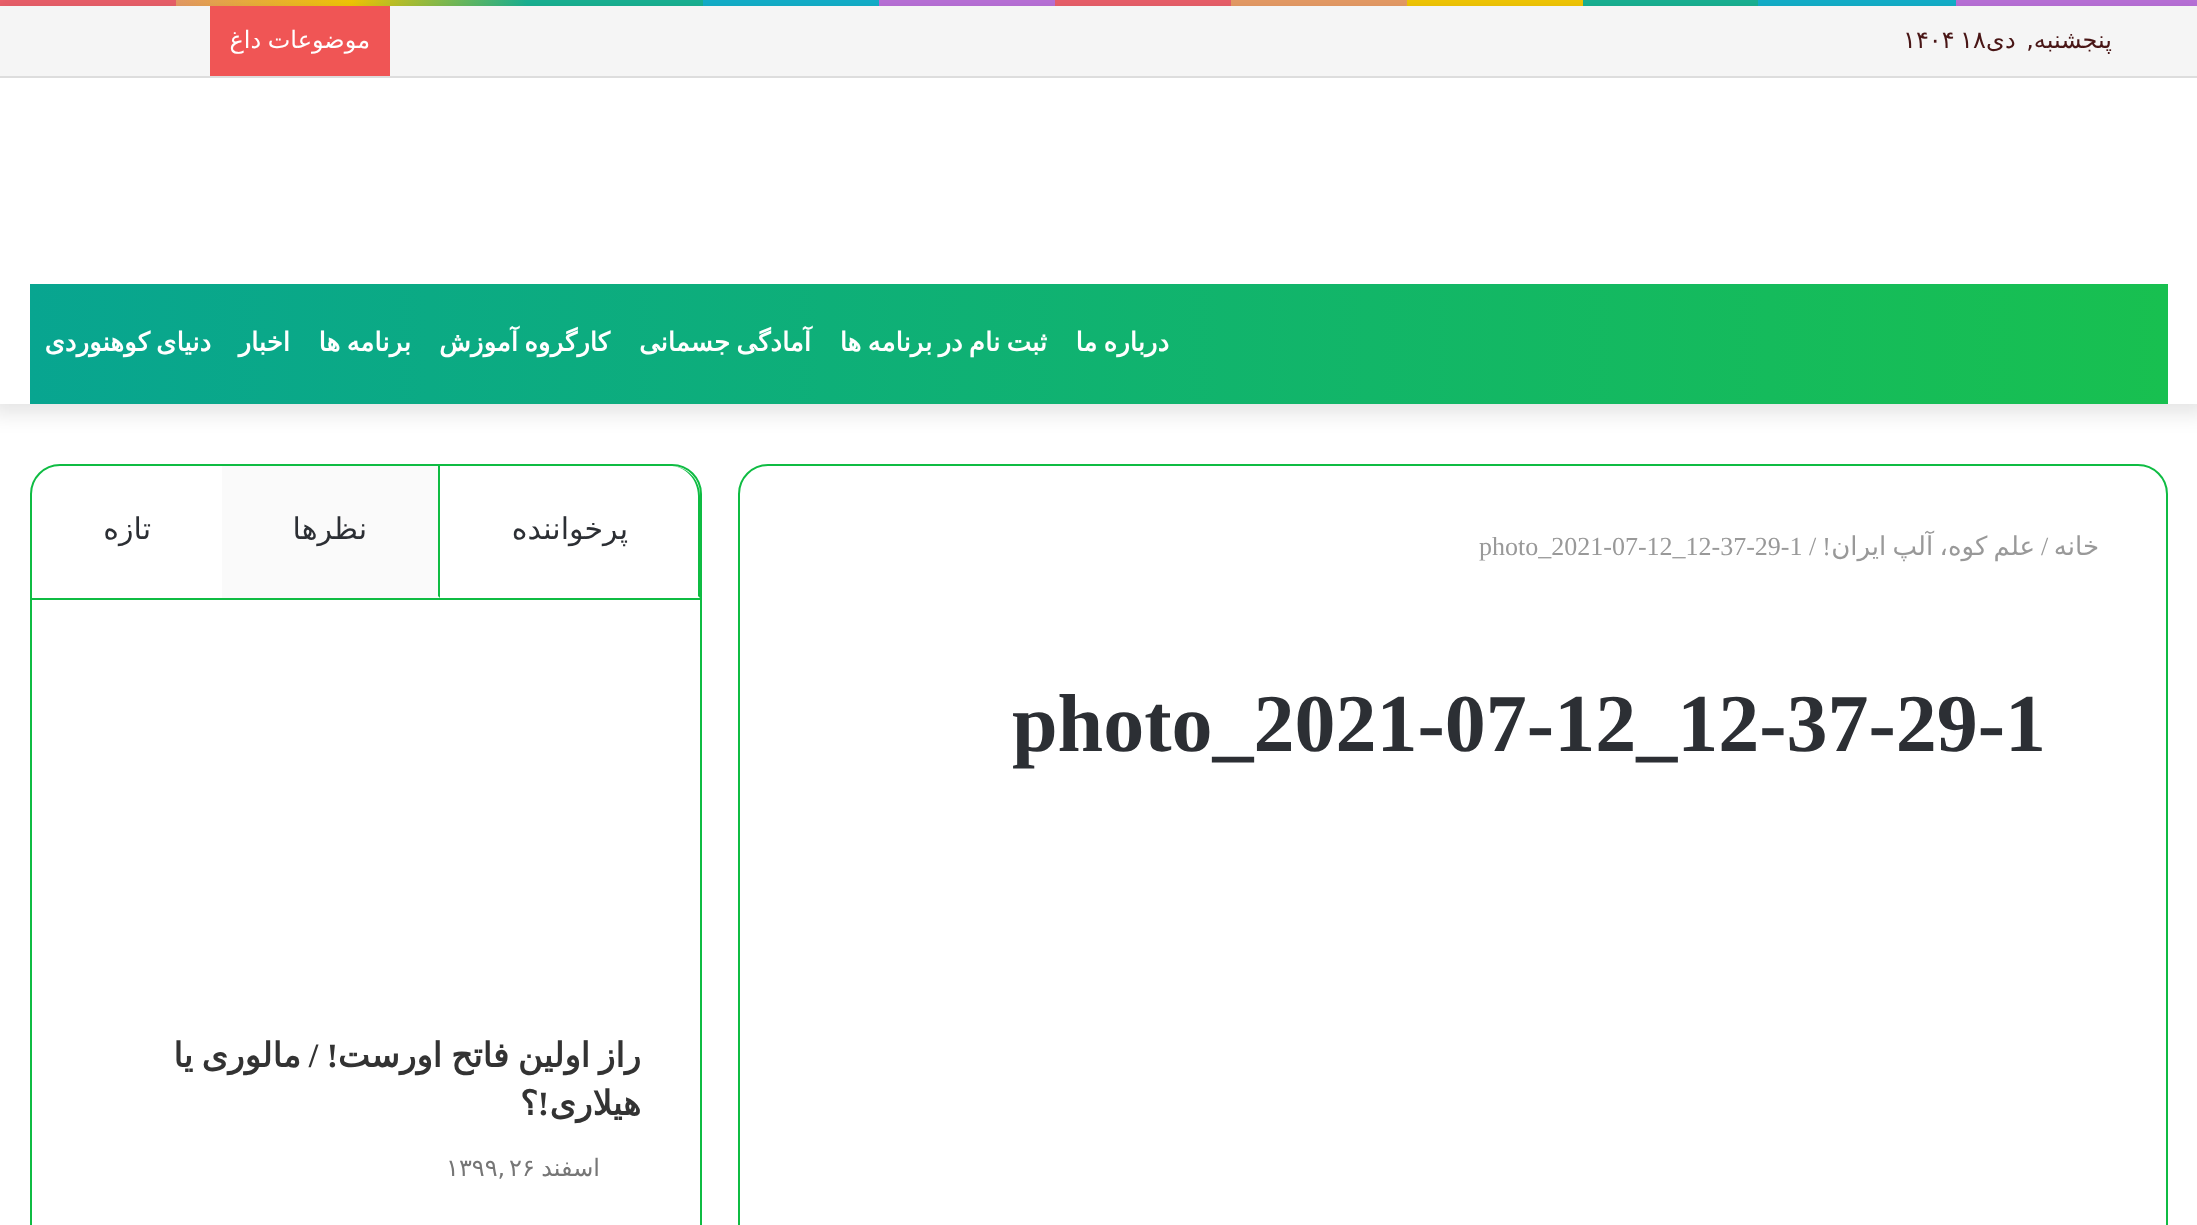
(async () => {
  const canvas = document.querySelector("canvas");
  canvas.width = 2197;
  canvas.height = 1225;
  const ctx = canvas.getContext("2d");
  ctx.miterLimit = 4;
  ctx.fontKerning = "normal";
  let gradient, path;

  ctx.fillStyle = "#ffffff";
  ctx.fillRect(0, 0, 2197, 1225);
  gradient = ctx.createLinearGradient(0, 3, 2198, 3);
  gradient.addColorStop(0, "#f76570");
  gradient.addColorStop(0.08, "#f76570");
  gradient.addColorStop(0.08, "#f3a46b");
  gradient.addColorStop(0.16, "#ffd205");
  gradient.addColorStop(0.24, "#1bbc9b");
  gradient.addColorStop(0.32, "#1bbc9b");
  gradient.addColorStop(0.32, "#14b9d5");
  gradient.addColorStop(0.4, "#14b9d5");
  gradient.addColorStop(0.4, "#c377e4");
  gradient.addColorStop(0.48, "#c377e4");
  gradient.addColorStop(0.48, "#f76570");
  gradient.addColorStop(0.56, "#f76570");
  gradient.addColorStop(0.56, "#f3a46b");
  gradient.addColorStop(0.64, "#f3a46b");
  gradient.addColorStop(0.64, "#ffd205");
  gradient.addColorStop(0.72, "#ffd205");
  gradient.addColorStop(0.72, "#1bbc9b");
  gradient.addColorStop(0.8, "#1bbc9b");
  gradient.addColorStop(0.8, "#14b9d5");
  gradient.addColorStop(0.89, "#14b9d5");
  gradient.addColorStop(0.89, "#c377e4");
  gradient.addColorStop(1, "#c377e4");
  ctx.fillStyle = gradient;
  ctx.fillRect(0, 0, 2197, 6);
  ctx.save();
  path = new Path2D("M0 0H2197V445H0ZM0 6H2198V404H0Z");
  ctx.clip(path, "evenodd");
  ctx.fillStyle = "rgba(0, 0, 0, 0.1)";
  ctx.filter = "blur(10px)";
  ctx.beginPath();
  ctx.rect(-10, -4, 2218, 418);
  ctx.fill();
  ctx.filter = "none";
  ctx.restore();
  for (const [x, y, w, h, color] of [
    [0, 6, 2197, 70, "#f5f5f5"],
    [0, 76, 2197, 2, "#dddddd"],
    [210, 6, 180, 70, "#f05555"],
  ]) {
    ctx.fillStyle = color;
    ctx.fillRect(x, y, w, h);
  }
  gradient = ctx.createLinearGradient(30, 344, 2168, 344);
  gradient.addColorStop(0, "#08a590");
  gradient.addColorStop(1, "#18c050");
  ctx.fillStyle = gradient;
  ctx.fillRect(30, 284, 2138, 120);
  ctx.beginPath();
  ctx.roundRect(739, 465, 1428, 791, 29);
  ctx.strokeStyle = "#0fbc43";
  ctx.lineWidth = 2;
  ctx.stroke();
  ctx.beginPath();
  ctx.roundRect(31, 465, 670, 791, 29);
  ctx.stroke();
  ctx.fillStyle = "#0fbc43";
  ctx.fillRect(32, 598, 668, 2);
  path = new Path2D("M700 496C700 479 687 466 670 466C685 466 698 479 698 496V596L700 598Z");
  ctx.fill(path);
  ctx.fillStyle = "#fafafa";
  ctx.fillRect(222, 466, 218, 132);
  ctx.fillStyle = "#0fbc43";
  path = new Path2D("M440 466V598L438 596V466Z");
  ctx.fill(path);
  ctx.wordSpacing = "3px";
  ctx.direction = "rtl";
  ctx.font = "24px DejaVu Sans";
  ctx.fillStyle = "#491616";
  ctx.fillText("پنجشنبه, دی", 2112, 48);
  ctx.wordSpacing = "0px";
  ctx.direction = "ltr";
  ctx.fillText("۱۸", 1960, 48);
  ctx.fillText("۱۴۰۴", 1903, 48);
  ctx.wordSpacing = "-1px";
  ctx.direction = "rtl";
  ctx.fillStyle = "#ffffff";
  ctx.fillText("موضوعات داغ", 370, 48);
  ctx.wordSpacing = "-2px";
  ctx.font = "bold 26px DejaVu Sans";
  for (const [text, x, y] of [
    ["درباره ما", 1169, 351],
    ["ثبت نام در برنامه ها", 1047, 351],
    ["آمادگی جسمانی", 811, 351],
    ["کارگروه آموزش", 610, 351],
    ["برنامه ها", 411, 351],
  ]) {
    ctx.fillText(text, x, y);
  }
  ctx.wordSpacing = "0px";
  ctx.fillText("اخبار", 290, 351);
  ctx.wordSpacing = "-2px";
  ctx.fillText("دنیای کوهنوردی", 211, 351);
  ctx.wordSpacing = "0px";
  ctx.font = "26px DejaVu Sans";
  ctx.fillStyle = "#999999";
  ctx.fillText("خانه", 2099, 555);
  ctx.direction = "ltr";
  ctx.font = "26px Liberation Serif";
  ctx.fillText("/", 2041, 555);
  ctx.wordSpacing = "-2px";
  ctx.direction = "rtl";
  ctx.font = "26px DejaVu Sans";
  ctx.fillText("علم کوه، آلپ ایران", 2035, 555);
  ctx.wordSpacing = "0px";
  ctx.font = "26px Liberation Serif";
  ctx.fillText("!", 1831, 555);
  ctx.direction = "ltr";
  ctx.fillText("/", 1809, 555);
  ctx.fillText("photo_2021-07-12_12-37-29-1", 1479, 555);
  ctx.font = "bold 82px Liberation Serif";
  ctx.fillStyle = "#2c2f34";
  ctx.fillText("photo_2021-07-12_12-37-29-1", 1012, 751);
  ctx.direction = "rtl";
  ctx.font = "30px DejaVu Sans";
  for (const [text, x, y] of [
    ["پرخواننده", 628, 539],
    ["نظرها", 367, 539],
    ["تازه", 151, 539],
  ]) {
    ctx.fillText(text, x, y);
  }
  ctx.font = "bold 34px DejaVu Sans";
  ctx.fillStyle = "#333333";
  for (const [text, x, y] of [
    ["راز", 641, 1067],
    ["اولین", 590, 1067],
    ["فاتح", 509, 1067],
    ["اورست", 442, 1067],
  ]) {
    ctx.fillText(text, x, y);
  }
  ctx.font = "bold 34px Liberation Serif";
  ctx.fillText("! /", 338, 1067);
  ctx.font = "bold 34px DejaVu Sans";
  for (const [text, x, y] of [
    ["مالوری", 301, 1067],
    ["یا", 193, 1067],
    ["هیلاری", 641, 1115],
  ]) {
    ctx.fillText(text, x, y);
  }
  ctx.font = "bold 34px Liberation Serif";
  ctx.fillText("!", 549, 1115);
  ctx.font = "bold 34px DejaVu Sans";
  ctx.fillText("؟", 538, 1115);
  ctx.font = "24px DejaVu Sans";
  ctx.fillStyle = "#767676";
  ctx.fillText("اسفند", 600, 1176);
  ctx.direction = "ltr";
  ctx.fillText("۲۶", 509, 1176);
  ctx.fillText("۱۳۹۹,", 446, 1176);
})();
